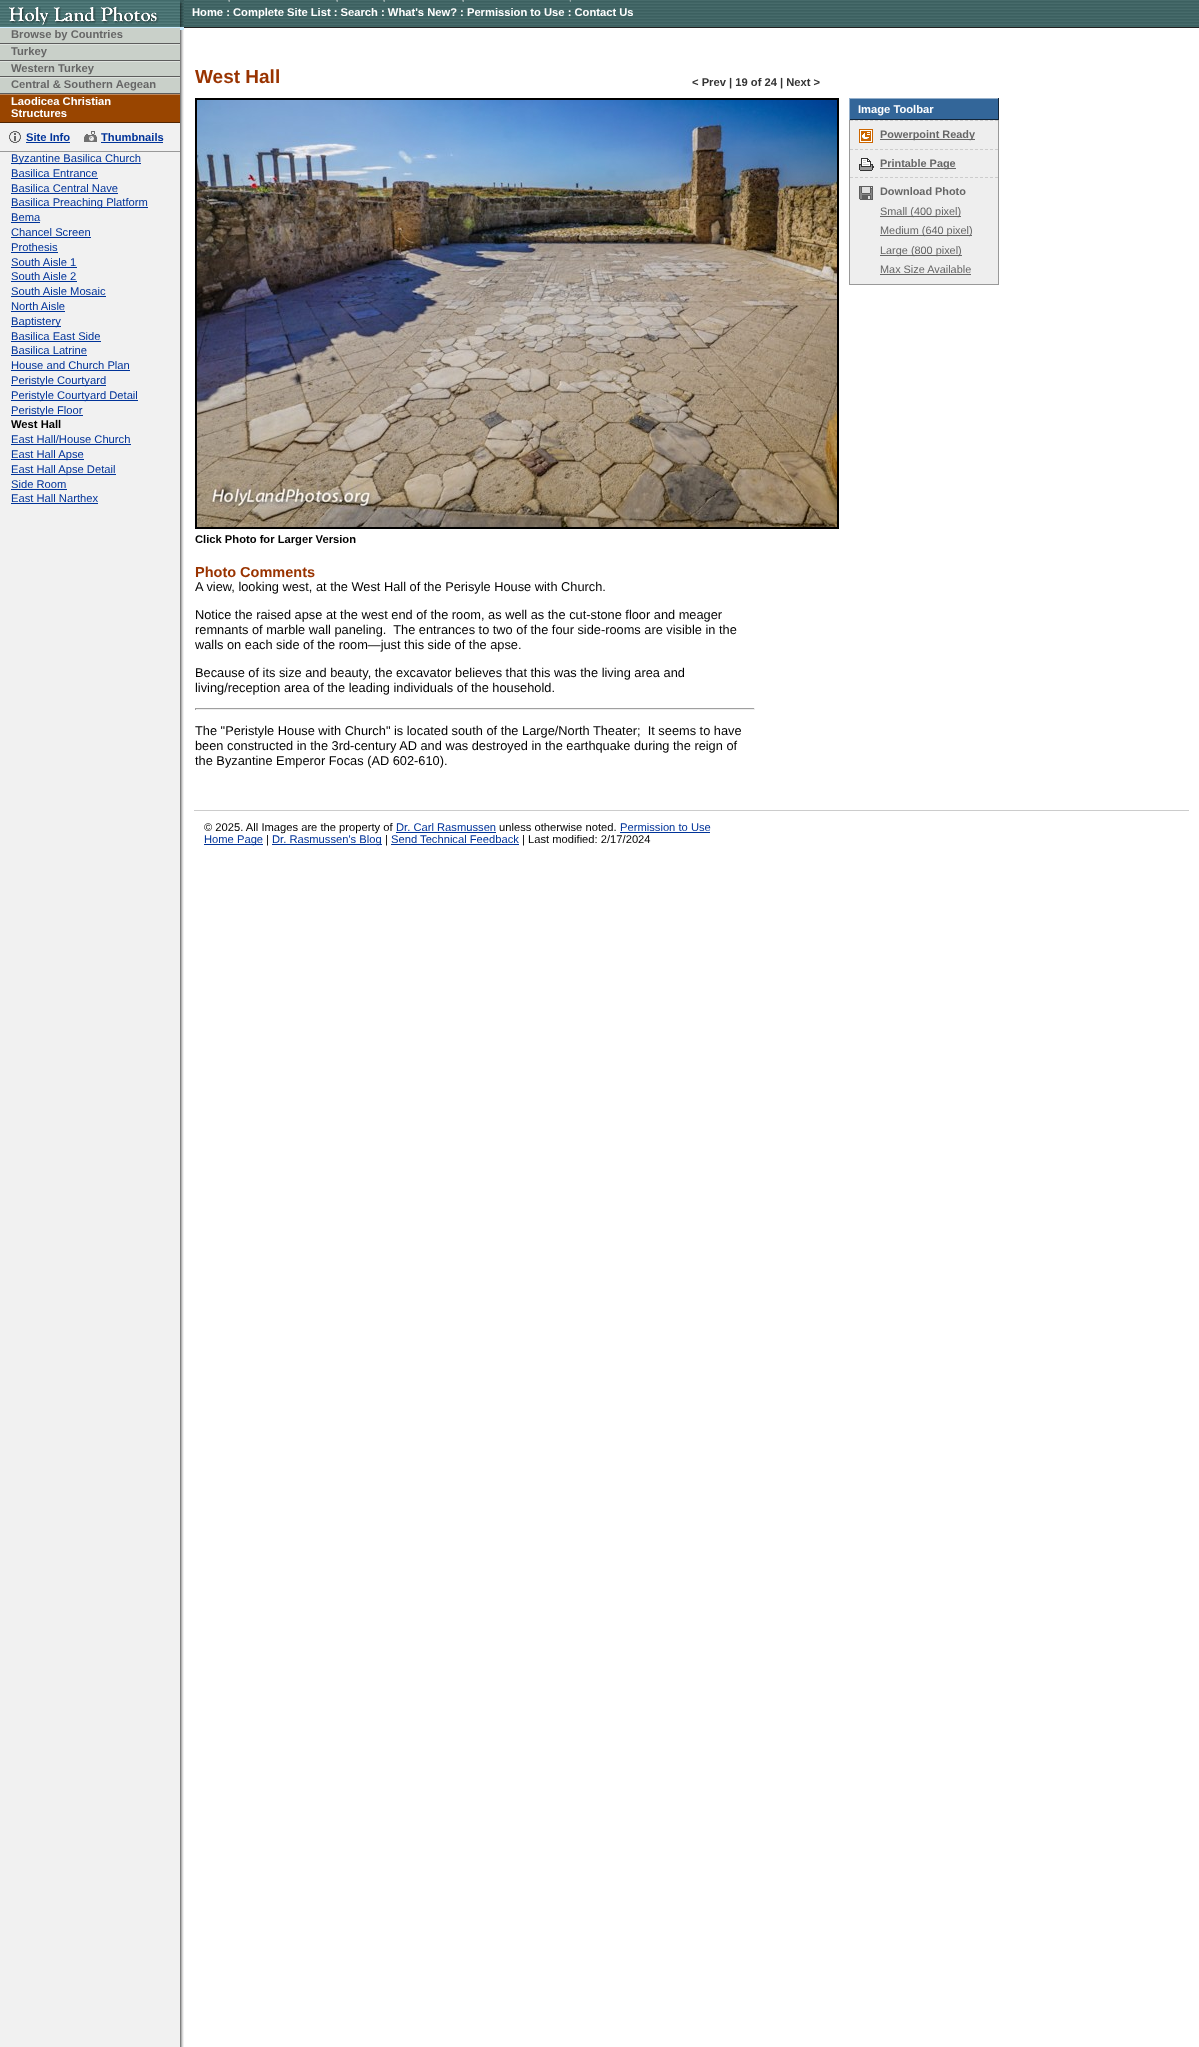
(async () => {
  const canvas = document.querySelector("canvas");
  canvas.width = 1199;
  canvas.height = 2047;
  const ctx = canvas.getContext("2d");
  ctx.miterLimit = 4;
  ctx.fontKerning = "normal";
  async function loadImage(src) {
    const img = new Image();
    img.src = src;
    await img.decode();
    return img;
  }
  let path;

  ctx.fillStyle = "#ffffff";
  ctx.fillRect(0, 0, 1199, 2047);
  ctx.drawImage(await loadImage("img/1.png"), 0, 30, 184, 2017);
  ctx.drawImage(await loadImage("img/2.png"), 184, 0, 1015, 27);
  ctx.fillStyle = "#222222";
  ctx.fillRect(184, 27, 1015, 1);
  ctx.drawImage(await loadImage("img/3.png"), 0, 0, 184, 27);
  ctx.fillStyle = "#ccecff";
  ctx.fillRect(0, 27, 184, 3);
  ctx.drawImage(await loadImage("img/4.png"), 228, 0, 2, 2);
  ctx.drawImage(await loadImage("img/4.png"), 336, 0, 2, 2);
  ctx.drawImage(await loadImage("img/4.png"), 383, 0, 2, 2);
  ctx.drawImage(await loadImage("img/4.png"), 462, 0, 2, 2);
  ctx.drawImage(await loadImage("img/5.png"), 569, 0, 2, 2);
  for (const [x, y, w, h, color] of [
    [0, 28, 180, 15, "#c9d0c9"],
    [0, 43, 180, 1, "#5c5c5c"],
    [0, 45, 180, 15, "#c9d0c9"],
    [0, 44, 180, 1, "#dee2de"],
    [0, 60, 180, 1, "#5c5c5c"],
    [0, 62, 180, 14, "#c9d0c9"],
    [0, 61, 180, 1, "#dee2de"],
    [0, 76, 180, 1, "#5c5c5c"],
    [0, 78, 180, 15, "#c9d0c9"],
    [0, 77, 180, 1, "#dee2de"],
    [0, 93, 180, 1, "#5c5c5c"],
    [0, 95, 180, 27, "#994500"],
    [0, 94, 180, 1, "#be885c"],
    [0, 122, 180, 1, "#502400"],
    [0, 151, 180, 1, "#999999"],
  ]) {
    ctx.fillStyle = color;
    ctx.fillRect(x, y, w, h);
  }
  ctx.drawImage(await loadImage("img/6.png"), 9, 131, 12, 12);
  ctx.fillStyle = "#003399";
  ctx.fillRect(26, 142, 44, 1);
  ctx.drawImage(await loadImage("img/7.png"), 84, 131, 13, 11);
  for (const [x, y, w, h, color] of [
    [101, 142, 62, 1, "#003399"],
    [11, 163, 130, 1, "#003399"],
    [11, 178, 87, 1, "#003399"],
    [11, 193, 107, 1, "#003399"],
    [11, 207, 137, 1, "#003399"],
    [11, 222, 29, 1, "#003399"],
    [11, 237, 80, 1, "#003399"],
    [11, 252, 47, 1, "#003399"],
    [11, 267, 66, 1, "#003399"],
    [11, 281, 66, 1, "#003399"],
    [11, 296, 95, 1, "#003399"],
    [11, 311, 54, 1, "#003399"],
    [11, 326, 50, 1, "#003399"],
    [11, 341, 90, 1, "#003399"],
    [11, 355, 76, 1, "#003399"],
    [11, 370, 119, 1, "#003399"],
    [11, 385, 95, 1, "#003399"],
    [11, 400, 127, 1, "#003399"],
    [11, 415, 72, 1, "#003399"],
    [11, 444, 120, 1, "#003399"],
    [11, 459, 73, 1, "#003399"],
    [11, 474, 105, 1, "#003399"],
    [11, 489, 56, 1, "#003399"],
    [11, 503, 87, 1, "#003399"],
    [850, 99, 148, 20, "#336699"],
    [849, 98, 150, 1, "#96b0cb"],
    [998, 98, 1, 22, "#132538"],
    [849, 119, 150, 1, "#132538"],
    [849, 98, 1, 22, "#96b0cb"],
    [850, 120, 148, 164, "#eeeeee"],
    [998, 120, 1, 165, "#999999"],
    [849, 284, 150, 1, "#999999"],
    [849, 120, 1, 165, "#999999"],
  ]) {
    ctx.fillStyle = color;
    ctx.fillRect(x, y, w, h);
  }
  ctx.drawImage(await loadImage("img/8.png"), 859, 129, 14, 14);
  path = new Path2D("M850 120.5H998");
  ctx.strokeStyle = "#cccccc";
  ctx.setLineDash([3, 2]);
  ctx.stroke(path);
  ctx.fillStyle = "#666666";
  ctx.fillRect(880, 139, 95, 1);
  ctx.drawImage(await loadImage("img/9.png"), 859, 158, 15, 13);
  path = new Path2D("M850 149.5H998");
  ctx.stroke(path);
  ctx.fillRect(880, 168, 76, 1);
  ctx.drawImage(await loadImage("img/10.png"), 859, 186, 14, 14);
  path = new Path2D("M850 177.5H998");
  ctx.stroke(path);
  for (const [x, y, w, h, color] of [
    [880, 216, 81, 1, "#666666"],
    [880, 235, 92, 1, "#666666"],
    [880, 255, 82, 1, "#666666"],
    [880, 274, 91, 1, "#666666"],
  ]) {
    ctx.fillStyle = color;
    ctx.fillRect(x, y, w, h);
  }
  ctx.strokeStyle = "#000000";
  ctx.lineWidth = 2;
  ctx.setLineDash([]);
  ctx.strokeRect(196, 99, 642, 429);
  ctx.drawImage(await loadImage("img/11.png"), 197, 100, 640, 427);
  for (const [x, y, w, h, color] of [
    [195, 708, 560, 1, "#9f9f9f"],
    [754, 708, 1, 2, "#eeeeee"],
    [195, 709, 560, 1, "#eeeeee"],
    [195, 708, 1, 2, "#9f9f9f"],
    [194, 810, 995, 1, "#cccccc"],
    [396, 832, 100, 1, "#003399"],
    [620, 832, 90, 1, "#003399"],
    [204, 844, 59, 1, "#003399"],
    [272, 844, 110, 1, "#003399"],
    [391, 844, 128, 1, "#003399"],
  ]) {
    ctx.fillStyle = color;
    ctx.fillRect(x, y, w, h);
  }
  ctx.font = "bold 11.2px Liberation Sans";
  ctx.fillStyle = "#ffffff";
  ctx.fillText("Home : Complete Site List : Search : What's New? : Permission to Use : Contact Us", 192, 16);
  ctx.fillStyle = "#666666";
  for (const [text, x, y] of [
    ["Browse by Countries", 11, 38],
    ["Turkey", 11, 55],
    ["Western Turkey", 11, 72],
    ["Central & Southern Aegean", 11, 88],
  ]) {
    ctx.fillText(text, x, y);
  }
  ctx.fillStyle = "#ffffff";
  ctx.fillText("Laodicea Christian", 11, 105);
  ctx.fillText("Structures", 11, 117);
  ctx.fillStyle = "#003399";
  ctx.fillText("Site Info", 26, 141);
  ctx.fillText("Thumbnails", 101, 141);
  ctx.font = "11.2px Liberation Sans";
  for (const [text, x, y] of [
    ["Byzantine Basilica Church", 11, 162],
    ["Basilica Entrance", 11, 177],
    ["Basilica Central Nave", 11, 192],
    ["Basilica Preaching Platform", 11, 206],
    ["Bema", 11, 221],
    ["Chancel Screen", 11, 236],
    ["Prothesis", 11, 251],
    ["South Aisle 1", 11, 266],
    ["South Aisle 2", 11, 280],
    ["South Aisle Mosaic", 11, 295],
    ["North Aisle", 11, 310],
    ["Baptistery", 11, 325],
    ["Basilica East Side", 11, 340],
    ["Basilica Latrine", 11, 354],
    ["House and Church Plan", 11, 369],
    ["Peristyle Courtyard", 11, 384],
    ["Peristyle Courtyard Detail", 11, 399],
    ["Peristyle Floor", 11, 414],
  ]) {
    ctx.fillText(text, x, y);
  }
  ctx.font = "bold 11.2px Liberation Sans";
  ctx.fillStyle = "#000000";
  ctx.fillText("West Hall", 11, 428);
  ctx.font = "11.2px Liberation Sans";
  ctx.fillStyle = "#003399";
  for (const [text, x, y] of [
    ["East Hall/House Church", 11, 443],
    ["East Hall Apse", 11, 458],
    ["East Hall Apse Detail", 11, 473],
    ["Side Room", 11, 488],
    ["East Hall Narthex", 11, 502],
  ]) {
    ctx.fillText(text, x, y);
  }
  ctx.font = "bold 19px Liberation Sans";
  ctx.fillStyle = "#993300";
  ctx.fillText("West Hall", 195, 83);
  ctx.font = "bold 11.2px Liberation Sans";
  ctx.fillStyle = "#333333";
  ctx.fillText("< Prev | 19 of 24 | Next >", 692, 86);
  ctx.fillStyle = "#ffffff";
  ctx.fillText("Image Toolbar", 858, 113);
  ctx.font = "bold 10.9px Liberation Sans";
  ctx.fillStyle = "#666666";
  for (const [text, x, y] of [
    ["Powerpoint Ready", 880, 138],
    ["Printable Page", 880, 167],
    ["Download Photo", 880, 195],
  ]) {
    ctx.fillText(text, x, y);
  }
  ctx.font = "10.9px Liberation Sans";
  for (const [text, x, y] of [
    ["Small (400 pixel)", 880, 215],
    ["Medium (640 pixel)", 880, 234],
    ["Large (800 pixel)", 880, 254],
    ["Max Size Available", 880, 273],
  ]) {
    ctx.fillText(text, x, y);
  }
  ctx.font = "bold 11.2px Liberation Sans";
  ctx.fillStyle = "#000000";
  ctx.fillText("Click Photo for Larger Version", 195, 543);
  ctx.font = "bold 14.5px Liberation Sans";
  ctx.fillStyle = "#993300";
  ctx.fillText("Photo Comments", 195, 577);
  ctx.font = "12.8px Liberation Sans";
  ctx.fillStyle = "#000000";
  for (const [text, x, y] of [
    ["A view, looking west, at the West Hall of the Perisyle House with Church.", 195, 591],
    ["Notice the raised apse at the west end of the room, as well as the cut-stone floor and meager", 195, 619],
    ["remnants of marble wall paneling.  The entrances to two of the four side-rooms are visible in the", 195, 634],
    ["walls on each side of the room—just this side of the apse.", 195, 649],
    ["Because of its size and beauty, the excavator believes that this was the living area and", 195, 677],
    ["living/reception area of the leading individuals of the household.", 195, 692],
    ["The \"Peristyle House with Church\" is located south of the Large/North Theater;  It seems to have", 195, 735],
    ["been constructed in the 3rd-century AD and was destroyed in the earthquake during the reign of", 195, 750],
    ["the Byzantine Emperor Focas (AD 602-610).", 195, 765],
  ]) {
    ctx.fillText(text, x, y);
  }
  ctx.font = "11.2px Liberation Sans";
  ctx.fillText("© 2025. All Images are the property of", 204, 831);
  ctx.fillStyle = "#003399";
  ctx.fillText("Dr. Carl Rasmussen", 396, 831);
  ctx.fillStyle = "#000000";
  ctx.fillText("unless otherwise noted.", 499, 831);
  ctx.fillStyle = "#003399";
  ctx.fillText("Permission to Use", 620, 831);
  ctx.fillText("Home Page", 204, 843);
  ctx.fillStyle = "#000000";
  ctx.fillText("|", 266, 843);
  ctx.fillStyle = "#003399";
  ctx.fillText("Dr. Rasmussen's Blog", 272, 843);
  ctx.fillStyle = "#000000";
  ctx.fillText("|", 385, 843);
  ctx.fillStyle = "#003399";
  ctx.fillText("Send Technical Feedback", 391, 843);
  ctx.fillStyle = "#000000";
  ctx.fillText("| Last modified: 2/17/2024", 522, 843);
})();
